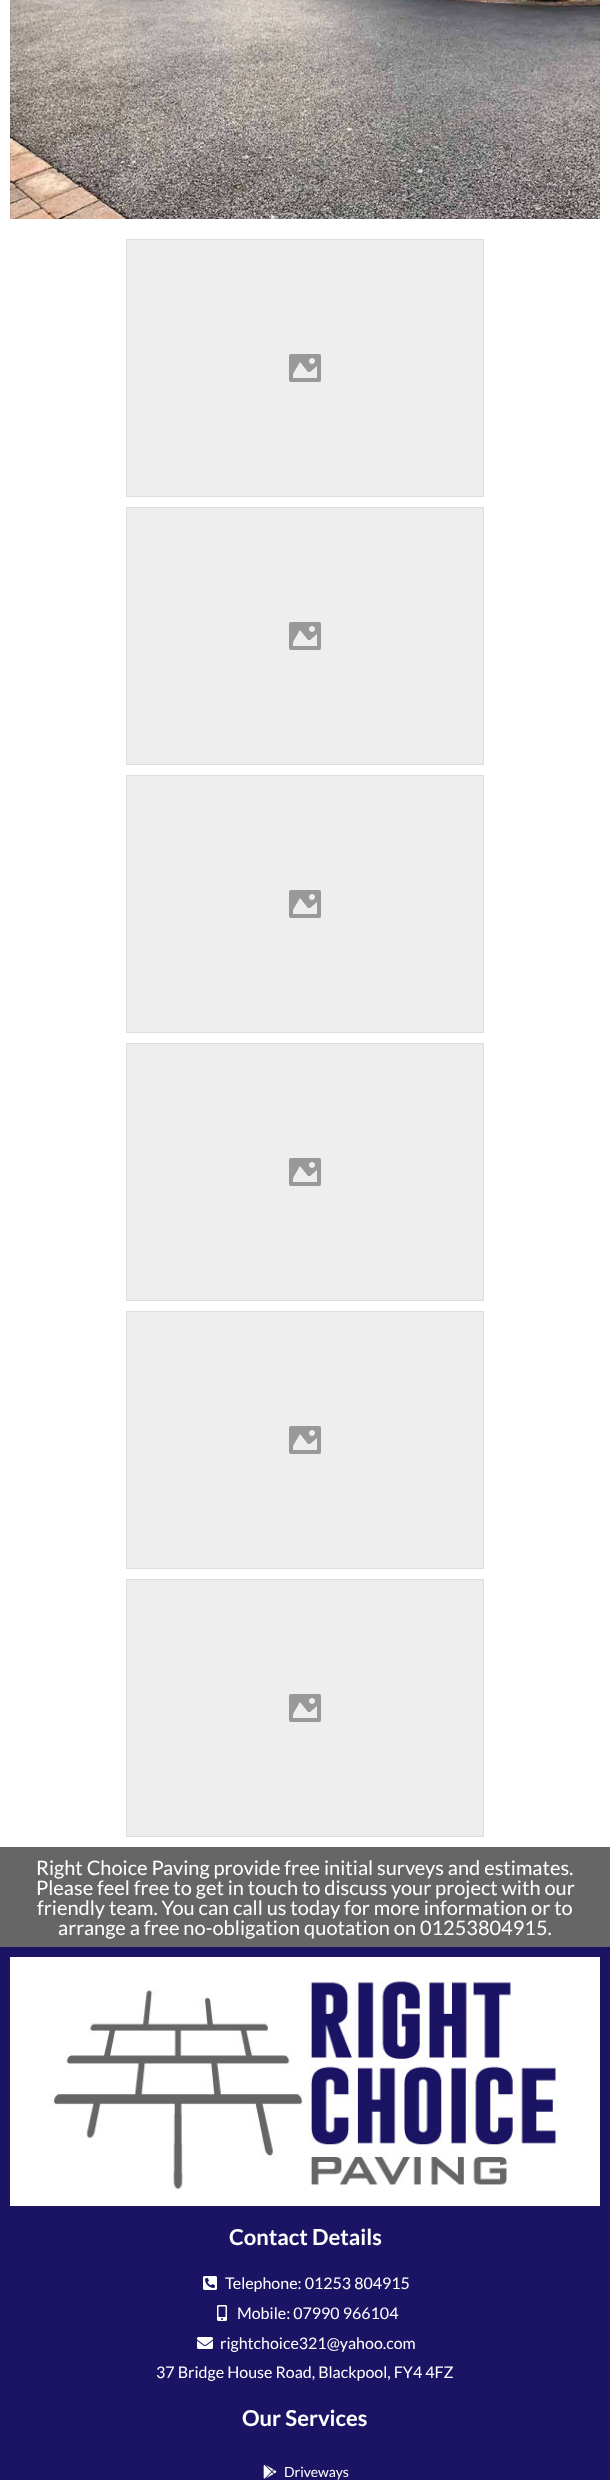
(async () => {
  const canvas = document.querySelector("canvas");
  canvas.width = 610;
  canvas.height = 2480;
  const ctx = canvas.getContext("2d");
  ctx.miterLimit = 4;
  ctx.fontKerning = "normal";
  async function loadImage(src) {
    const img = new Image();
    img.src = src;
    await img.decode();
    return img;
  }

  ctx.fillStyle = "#ffffff";
  ctx.fillRect(0, 0, 610, 2480);
  ctx.drawImage(await loadImage("img/1.png"), 10, 0, 590, 219);
  ctx.fillStyle = "#eeeeee";
  ctx.beginPath();
  ctx.rect(126.5, 239.5, 357, 257);
  ctx.fill();
  ctx.strokeStyle = "#dddddd";
  ctx.stroke();
  ctx.drawImage(await loadImage("img/2.png"), 289, 354, 32, 28);
  ctx.beginPath();
  ctx.rect(126.5, 507.5, 357, 257);
  ctx.fill();
  ctx.stroke();
  ctx.drawImage(await loadImage("img/2.png"), 289, 622, 32, 28);
  ctx.beginPath();
  ctx.rect(126.5, 775.5, 357, 257);
  ctx.fill();
  ctx.stroke();
  ctx.drawImage(await loadImage("img/2.png"), 289, 890, 32, 28);
  ctx.beginPath();
  ctx.rect(126.5, 1043.5, 357, 257);
  ctx.fill();
  ctx.stroke();
  ctx.drawImage(await loadImage("img/2.png"), 289, 1158, 32, 28);
  ctx.beginPath();
  ctx.rect(126.5, 1311.5, 357, 257);
  ctx.fill();
  ctx.stroke();
  ctx.drawImage(await loadImage("img/2.png"), 289, 1426, 32, 28);
  ctx.beginPath();
  ctx.rect(126.5, 1579.5, 357, 257);
  ctx.fill();
  ctx.stroke();
  ctx.drawImage(await loadImage("img/2.png"), 289, 1694, 32, 28);
  ctx.fillStyle = "#666666";
  ctx.fillRect(0, 1847, 610, 100);
  ctx.fillStyle = "#1b1464";
  ctx.fillRect(0, 1947, 610, 533);
  ctx.drawImage(await loadImage("img/3.png"), 10, 1957, 590, 249);
  ctx.drawImage(await loadImage("img/4.png"), 203, 2276, 14, 14);
  ctx.drawImage(await loadImage("img/5.png"), 217, 2305, 10, 16);
  ctx.drawImage(await loadImage("img/6.png"), 197, 2337, 16, 12);
  ctx.drawImage(await loadImage("img/7.png"), 263, 2464, 14, 15);
  ctx.font = "20px Lato";
  ctx.fillStyle = "#ffffff";
  for (const [text, x, y] of [
    ["Right Choice Paving provide free initial surveys and estimates.", 36, 1875],
    ["Please feel free to get in touch to discuss your project with our", 36, 1895],
    ["friendly team. You can call us today for more information or to", 37, 1915],
    ["arrange a free no-obligation quotation on 01253804915.", 58, 1935],
  ]) {
    ctx.fillText(text, x, y);
  }
  ctx.font = "bold 22px Lato";
  ctx.fillText("Contact Details", 229, 2245);
  ctx.font = "16px Lato";
  for (const [text, x, y] of [
    ["Telephone: 01253 804915", 225, 2289],
    ["Mobile: 07990 966104", 237, 2319],
    ["rightchoice321@yahoo.com", 220, 2349],
    ["37 Bridge House Road, Blackpool, FY4 4FZ", 156, 2378],
  ]) {
    ctx.fillText(text, x, y);
  }
  ctx.font = "bold 22px Lato";
  ctx.fillText("Our Services", 242, 2426);
  ctx.font = "14px Lato";
  ctx.fillText("Driveways", 284, 2477);
})();
